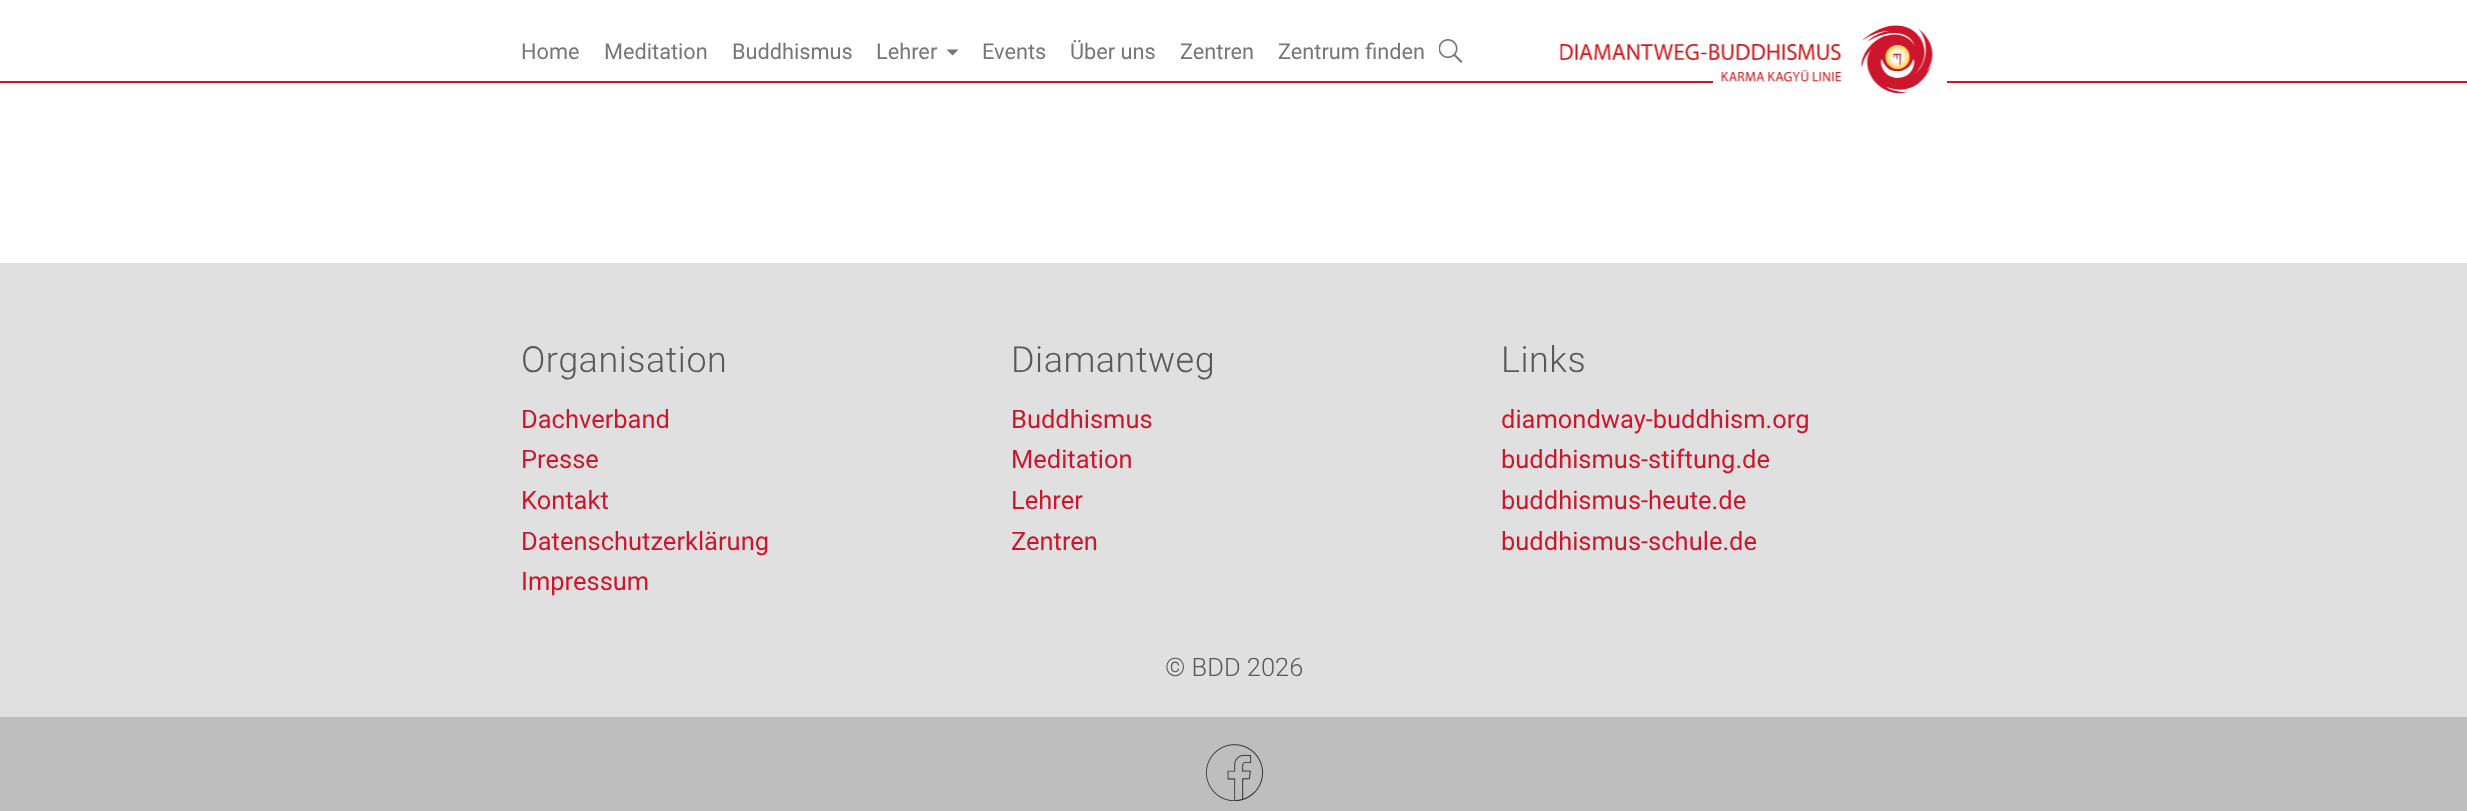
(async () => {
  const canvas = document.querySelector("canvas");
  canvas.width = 2467;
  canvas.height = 811;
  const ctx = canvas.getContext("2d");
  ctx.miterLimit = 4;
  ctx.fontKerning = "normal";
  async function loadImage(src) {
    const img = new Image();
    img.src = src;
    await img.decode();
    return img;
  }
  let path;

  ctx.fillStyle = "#ffffff";
  ctx.fillRect(0, 0, 2467, 811);
  ctx.fillStyle = "#777777";
  path = new Path2D("M946.5 49.5H958.5L952.5 55.5Z");
  ctx.fill(path);
  ctx.drawImage(await loadImage("img/1.png"), 1439, 39, 24, 24);
  ctx.drawImage(await loadImage("img/2.png"), 1560, 25, 373, 69);
  for (const [x, y, w, h, color] of [
    [0, 81, 1713, 2, "#cc162b"],
    [1947, 81, 520, 2, "#cc162b"],
    [0, 263, 2467, 454, "#e0e0e0"],
    [0, 717, 2467, 94, "#bebebe"],
  ]) {
    ctx.fillStyle = color;
    ctx.fillRect(x, y, w, h);
  }
  ctx.drawImage(await loadImage("img/3.png"), 1206, 744, 57, 57);
  ctx.font = "21.75px Roboto";
  ctx.fillStyle = "#777777";
  for (const [text, x, y] of [
    ["Home", 521, 59],
    ["Meditation", 604, 59],
    ["Buddhismus", 732, 59],
    ["Lehrer", 876, 59],
    ["Events", 982, 59],
    ["Über uns", 1070, 59],
    ["Zentren", 1180, 59],
    ["Zentrum finden", 1278, 59],
  ]) {
    ctx.fillText(text, x, y);
  }
  ctx.letterSpacing = "0.5px";
  ctx.font = "300 36px Roboto";
  ctx.fillStyle = "#595959";
  ctx.fillText("Organisation", 521, 372);
  ctx.letterSpacing = "0px";
  ctx.font = "25.5px Roboto";
  ctx.fillStyle = "#cc162b";
  for (const [text, x, y] of [
    ["Dachverband", 521, 428],
    ["Presse", 521, 468],
    ["Kontakt", 521, 509],
    ["Datenschutzerklärung", 521, 550],
    ["Impressum", 521, 590],
  ]) {
    ctx.fillText(text, x, y);
  }
  ctx.letterSpacing = "0.5px";
  ctx.font = "300 36px Roboto";
  ctx.fillStyle = "#595959";
  ctx.fillText("Diamantweg", 1011, 372);
  ctx.letterSpacing = "0px";
  ctx.font = "25.5px Roboto";
  ctx.fillStyle = "#cc162b";
  for (const [text, x, y] of [
    ["Buddhismus", 1011, 428],
    ["Meditation", 1011, 468],
    ["Lehrer", 1011, 509],
    ["Zentren", 1011, 550],
  ]) {
    ctx.fillText(text, x, y);
  }
  ctx.letterSpacing = "0.5px";
  ctx.font = "300 36px Roboto";
  ctx.fillStyle = "#595959";
  ctx.fillText("Links", 1501, 372);
  ctx.letterSpacing = "0px";
  ctx.font = "25.5px Roboto";
  ctx.fillStyle = "#cc162b";
  for (const [text, x, y] of [
    ["diamondway-buddhism.org", 1501, 428],
    ["buddhismus-stiftung.de", 1501, 468],
    ["buddhismus-heute.de", 1501, 509],
    ["buddhismus-schule.de", 1501, 550],
  ]) {
    ctx.fillText(text, x, y);
  }
  ctx.font = "300 25.5px Roboto";
  ctx.fillStyle = "#595959";
  ctx.fillText("© BDD 2026", 1165, 676);
})();
